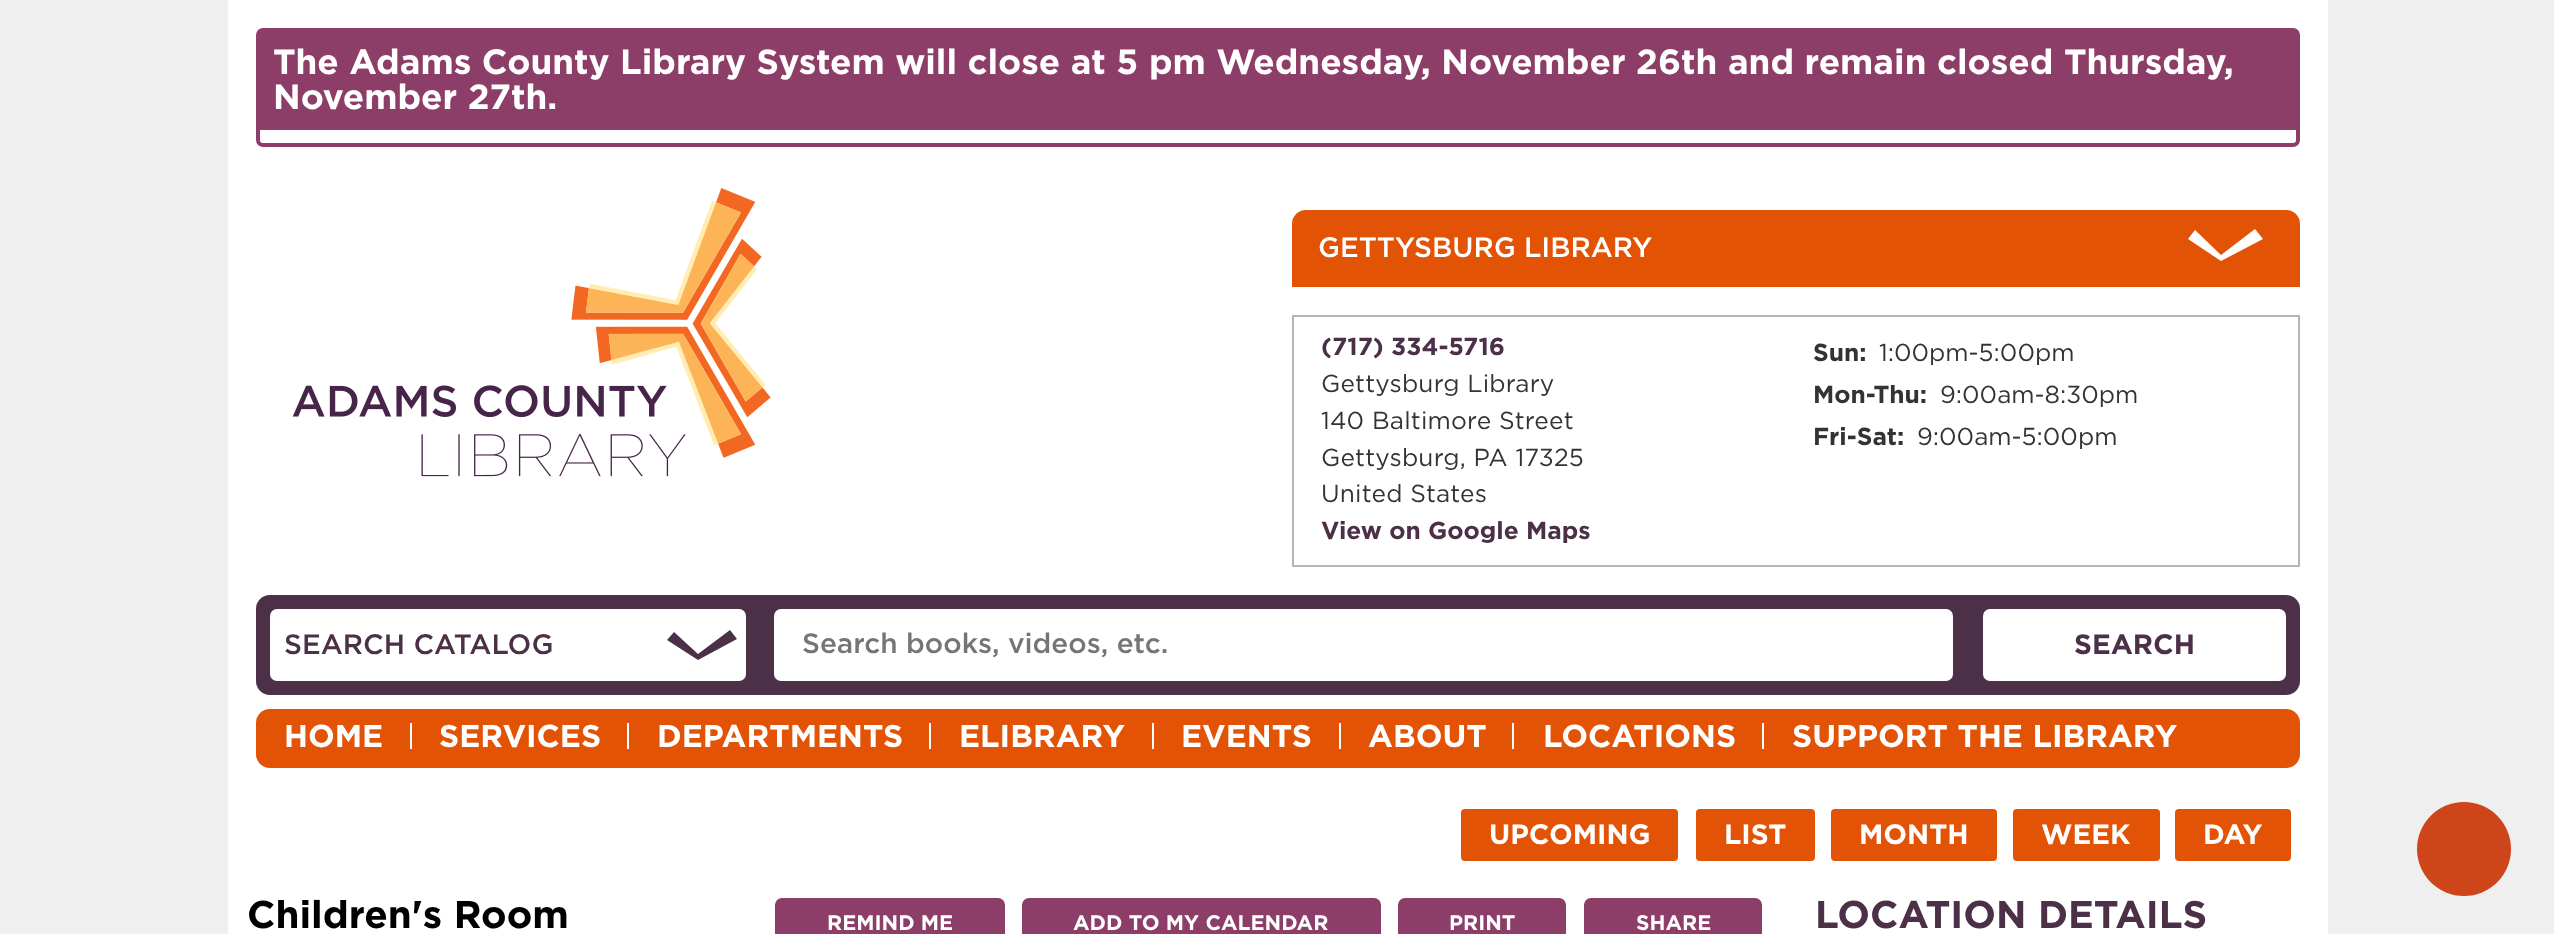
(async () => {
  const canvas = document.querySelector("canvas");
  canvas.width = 2554;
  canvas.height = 934;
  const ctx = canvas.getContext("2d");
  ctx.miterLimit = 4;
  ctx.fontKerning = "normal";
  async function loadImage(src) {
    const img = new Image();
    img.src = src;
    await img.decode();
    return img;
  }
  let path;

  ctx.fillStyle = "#efefef";
  ctx.fillRect(0, 0, 2554, 934);
  ctx.fillStyle = "#ffffff";
  ctx.fillRect(228, 0, 2100, 934);
  ctx.beginPath();
  ctx.roundRect(258, 30, 2040, 115, 5);
  ctx.strokeStyle = "#8c3e68";
  ctx.lineWidth = 4;
  ctx.stroke();
  ctx.fillStyle = "#8c3e68";
  ctx.fillRect(260, 32, 2036, 98);
  ctx.drawImage(await loadImage("img/1.png"), 292, 188, 479, 289);
  ctx.fillStyle = "#e35305";
  ctx.beginPath();
  ctx.roundRect(1292, 210, 1008, 77, [14, 14, 0, 0]);
  ctx.fill();
  ctx.fillStyle = "#ffffff";
  path = new Path2D("M2263 239L2221 261L2188 239L2195 230L2221 255L2255 229Z");
  ctx.fill(path);
  ctx.strokeStyle = "#b3b6b8";
  ctx.lineWidth = 2;
  ctx.strokeRect(1293, 316, 1006, 250);
  ctx.fillStyle = "#4b3048";
  ctx.beginPath();
  ctx.roundRect(256, 595, 2044, 100, 14);
  ctx.fill();
  ctx.fillStyle = "#ffffff";
  ctx.beginPath();
  ctx.roundRect(270, 609, 476, 72, 7);
  ctx.fill();
  ctx.fillStyle = "#4b3048";
  path = new Path2D("M667 640L698 660L737 639L730 630L698 654L674 632Z");
  ctx.fill(path);
  ctx.fillStyle = "#ffffff";
  ctx.beginPath();
  ctx.roundRect(774, 609, 1179, 72, 7);
  ctx.fill();
  ctx.beginPath();
  ctx.roundRect(1983, 609, 303, 72, 7);
  ctx.fill();
  ctx.fillStyle = "#e35305";
  ctx.beginPath();
  ctx.roundRect(256, 709, 2044, 59, 14);
  ctx.fill();
  for (const [x, y, w, h, color] of [
    [410, 723, 2, 26, "#ffffff"],
    [627, 723, 2, 26, "#ffffff"],
    [929, 723, 2, 26, "#ffffff"],
    [1152, 723, 2, 26, "#ffffff"],
    [1339, 723, 2, 26, "#ffffff"],
    [1512, 723, 2, 26, "#ffffff"],
    [1762, 723, 2, 26, "#ffffff"],
  ]) {
    ctx.fillStyle = color;
    ctx.fillRect(x, y, w, h);
  }
  ctx.fillStyle = "#e35305";
  ctx.beginPath();
  ctx.roundRect(1461, 809, 217, 52, 4);
  ctx.fill();
  ctx.beginPath();
  ctx.roundRect(1696, 809, 119, 52, 4);
  ctx.fill();
  ctx.beginPath();
  ctx.roundRect(1831, 809, 166, 52, 4);
  ctx.fill();
  ctx.beginPath();
  ctx.roundRect(2013, 809, 147, 52, 4);
  ctx.fill();
  ctx.beginPath();
  ctx.roundRect(2175, 809, 116, 52, 4);
  ctx.fill();
  ctx.fillStyle = "#8c3e68";
  ctx.beginPath();
  ctx.roundRect(775, 898, 230, 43, 7);
  ctx.fill();
  ctx.beginPath();
  ctx.roundRect(1022, 898, 359, 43, 7);
  ctx.fill();
  ctx.beginPath();
  ctx.roundRect(1398, 898, 168, 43, 7);
  ctx.fill();
  ctx.beginPath();
  ctx.roundRect(1584, 898, 178, 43, 7);
  ctx.fill();
  ctx.fillStyle = "#cd4518";
  ctx.beginPath();
  ctx.arc(2464, 849, 47, 0, Math.PI * 2);
  ctx.fill();
  ctx.font = "bold 35px Gotham";
  ctx.fillStyle = "#ffffff";
  ctx.fillText("The Adams County Library System will close at 5 pm Wednesday, November 26th and remain closed Thursday,", 273, 74);
  ctx.fillText("November 27th.", 273, 109);
  ctx.font = "500 28px Gotham";
  ctx.fillText("GETTYSBURG LIBRARY", 1318, 257);
  ctx.font = "bold 24.5px Gotham";
  ctx.fillStyle = "#4b3048";
  ctx.fillText("(717) 334-5716", 1321, 355);
  ctx.letterSpacing = "0.2px";
  ctx.font = "24.5px Gotham";
  ctx.fillStyle = "#333333";
  for (const [text, x, y] of [
    ["Gettysburg Library", 1321, 392],
    ["140 Baltimore Street", 1321, 429],
    ["Gettysburg, PA 17325", 1321, 466],
    ["United States", 1321, 502],
  ]) {
    ctx.fillText(text, x, y);
  }
  ctx.letterSpacing = "0px";
  ctx.font = "bold 24.5px Gotham";
  ctx.fillStyle = "#4b3048";
  ctx.fillText("View on Google Maps", 1321, 539);
  ctx.fillStyle = "#333333";
  ctx.fillText("Sun:", 1813, 361);
  ctx.font = "24.5px Gotham";
  ctx.fillText("1:00pm-5:00pm", 1879, 361);
  ctx.font = "bold 24.5px Gotham";
  ctx.fillText("Mon-Thu:", 1813, 403);
  ctx.font = "24.5px Gotham";
  ctx.fillText("9:00am-8:30pm", 1940, 403);
  ctx.font = "bold 24.5px Gotham";
  ctx.fillText("Fri-Sat:", 1813, 445);
  ctx.font = "24.5px Gotham";
  ctx.fillText("9:00am-5:00pm", 1917, 445);
  ctx.font = "500 28px Gotham";
  ctx.fillStyle = "#4b3048";
  ctx.fillText("SEARCH CATALOG", 284, 654);
  ctx.fillStyle = "#757575";
  ctx.fillText("Search books, videos, etc.", 802, 653);
  ctx.font = "bold 28px Gotham";
  ctx.fillStyle = "#4b3048";
  ctx.fillText("SEARCH", 2074, 654);
  ctx.font = "bold 31.5px Gotham";
  ctx.fillStyle = "#ffffff";
  for (const [text, x, y] of [
    ["HOME", 284, 747],
    ["SERVICES", 439, 747],
    ["DEPARTMENTS", 657, 747],
    ["ELIBRARY", 959, 747],
    ["EVENTS", 1181, 747],
    ["ABOUT", 1368, 747],
    ["LOCATIONS", 1543, 747],
    ["SUPPORT THE LIBRARY", 1792, 747],
  ]) {
    ctx.fillText(text, x, y);
  }
  ctx.font = "bold 28px Gotham";
  for (const [text, x, y] of [
    ["UPCOMING", 1489, 844],
    ["LIST", 1724, 844],
    ["MONTH", 1859, 844],
    ["WEEK", 2041, 844],
    ["DAY", 2203, 844],
  ]) {
    ctx.fillText(text, x, y);
  }
  ctx.font = "bold 38.5px Gotham";
  ctx.fillStyle = "#000000";
  ctx.fillText("Children's Room", 247, 928);
  ctx.font = "bold 21px Gotham";
  ctx.fillStyle = "#ffffff";
  for (const [text, x, y] of [
    ["REMIND ME", 827, 930],
    ["ADD TO MY CALENDAR", 1073, 930],
    ["PRINT", 1449, 930],
    ["SHARE", 1636, 930],
  ]) {
    ctx.fillText(text, x, y);
  }
  ctx.font = "bold 38.5px Gotham";
  ctx.fillStyle = "#4b3048";
  ctx.fillText("LOCATION DETAILS", 1815, 928);
})();
